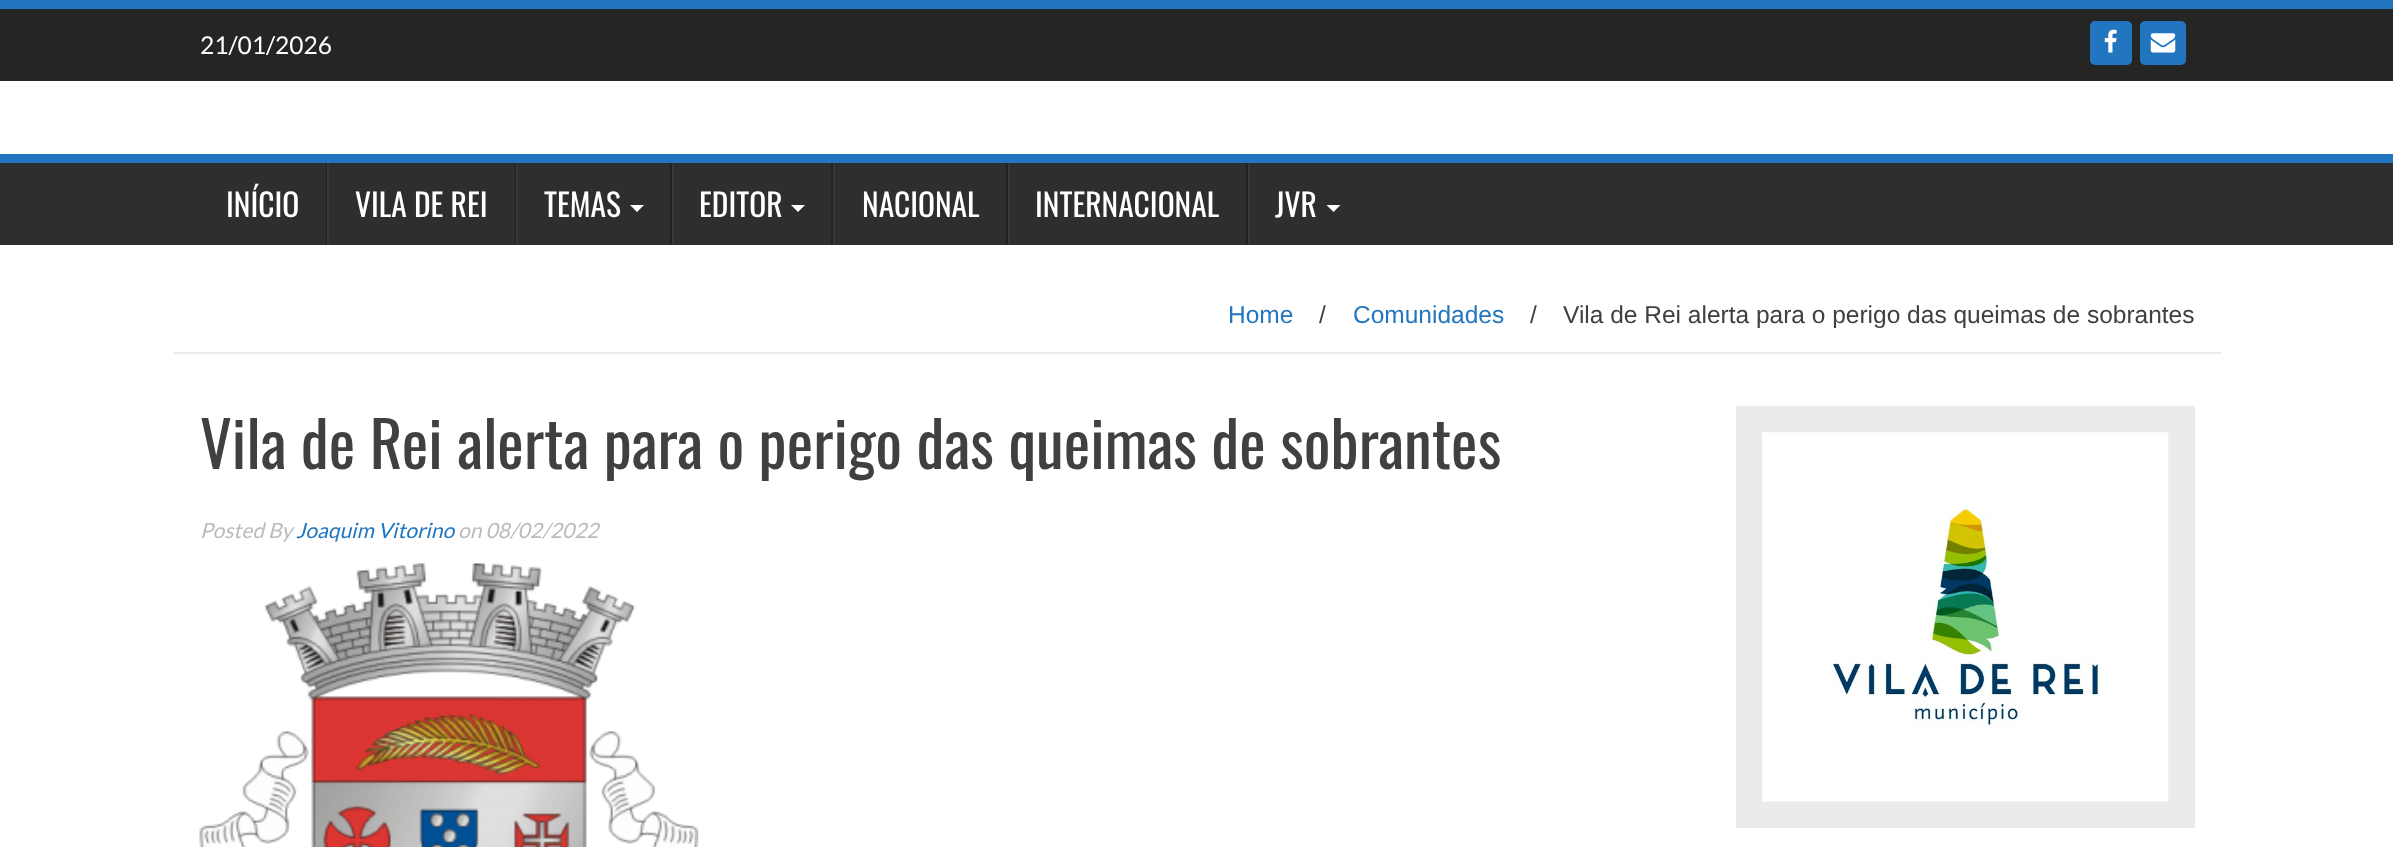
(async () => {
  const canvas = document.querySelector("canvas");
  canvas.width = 2393;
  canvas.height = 847;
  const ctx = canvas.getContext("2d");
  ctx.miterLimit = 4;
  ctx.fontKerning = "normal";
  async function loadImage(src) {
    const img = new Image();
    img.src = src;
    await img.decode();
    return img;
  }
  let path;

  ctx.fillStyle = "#ffffff";
  ctx.fillRect(0, 0, 2393, 847);
  ctx.fillStyle = "#252525";
  ctx.fillRect(0, 9, 2393, 72);
  ctx.fillStyle = "#2276bf";
  ctx.fillRect(0, 0, 2393, 9);
  ctx.beginPath();
  ctx.roundRect(2090, 21, 42, 44, 5);
  ctx.fill();
  ctx.drawImage(await loadImage("img/1.png"), 2104, 29, 13, 24);
  ctx.beginPath();
  ctx.roundRect(2140, 21, 46, 44, 5);
  ctx.fill();
  ctx.drawImage(await loadImage("img/2.png"), 2150, 33, 26, 20);
  for (const [x, y, w, h, color] of [
    [0, 163, 2393, 82, "#2e2e2e"],
    [0, 154, 2393, 9, "#2276bf"],
    [326, 163, 1, 82, "#222222"],
    [515, 163, 1, 82, "#222222"],
    [327, 163, 2, 82, "#383838"],
    [670, 163, 2, 82, "#222222"],
    [516, 163, 2, 82, "#383838"],
  ]) {
    ctx.fillStyle = color;
    ctx.fillRect(x, y, w, h);
  }
  ctx.fillStyle = "#ffffff";
  path = new Path2D("M630 205H644L637 212Z");
  ctx.fill(path);
  ctx.fillStyle = "#222222";
  ctx.fillRect(831, 163, 2, 82);
  ctx.fillStyle = "#383838";
  ctx.fillRect(672, 163, 2, 82);
  ctx.fillStyle = "#ffffff";
  path = new Path2D("M791 205H805L798 212Z");
  ctx.fill(path);
  for (const [x, y, w, h, color] of [
    [1006, 163, 2, 82, "#222222"],
    [833, 163, 2, 82, "#383838"],
    [1246, 163, 2, 82, "#222222"],
    [1008, 163, 2, 82, "#383838"],
    [1248, 163, 2, 82, "#383838"],
  ]) {
    ctx.fillStyle = color;
    ctx.fillRect(x, y, w, h);
  }
  ctx.fillStyle = "#ffffff";
  path = new Path2D("M1326.5 205H1340.5L1333.5 212Z");
  ctx.fill(path);
  ctx.fillStyle = "#ebebeb";
  ctx.fillRect(173, 352, 2048, 2);
  ctx.drawImage(await loadImage("img/3.png"), 199, 563, 500, 284);
  ctx.fillRect(1736, 406, 459, 422);
  ctx.drawImage(await loadImage("img/4.png"), 1762, 432, 407, 370);
  ctx.font = "24.5px Lato";
  ctx.fillStyle = "#ffffff";
  ctx.fillText("21/01/2026", 200, 54);
  ctx.font = "31.5px Oswald";
  for (const [text, x, y] of [
    ["INÍCIO", 226, 217],
    ["VILA DE REI", 355, 217],
    ["TEMAS", 544, 217],
    ["EDITOR", 699, 217],
    ["NACIONAL", 862, 217],
    ["INTERNACIONAL", 1035, 217],
    ["JVR", 1275, 217],
  ]) {
    ctx.fillText(text, x, y);
  }
  ctx.font = "24.5px Liberation Sans";
  ctx.fillStyle = "#2276bf";
  ctx.fillText("Home", 1228, 323);
  ctx.fillStyle = "#404040";
  ctx.fillText("/", 1319, 323);
  ctx.fillStyle = "#2276bf";
  ctx.fillText("Comunidades", 1353, 323);
  ctx.fillStyle = "#404040";
  ctx.fillText("/", 1530, 323);
  ctx.fillText("Vila de Rei alerta para o perigo das queimas de sobrantes", 1563, 323);
  ctx.font = "63px Oswald";
  ctx.fillText("Vila de Rei alerta para o perigo das queimas de sobrantes", 200, 469);
  ctx.font = "italic 21px Lato";
  ctx.fillStyle = "#bbbbbb";
  ctx.fillText("Posted By", 200, 538);
  ctx.fillStyle = "#2276bf";
  ctx.fillText("Joaquim Vitorino", 296, 538);
  ctx.fillStyle = "#bbbbbb";
  ctx.fillText("on 08/02/2022", 458, 538);
})();
